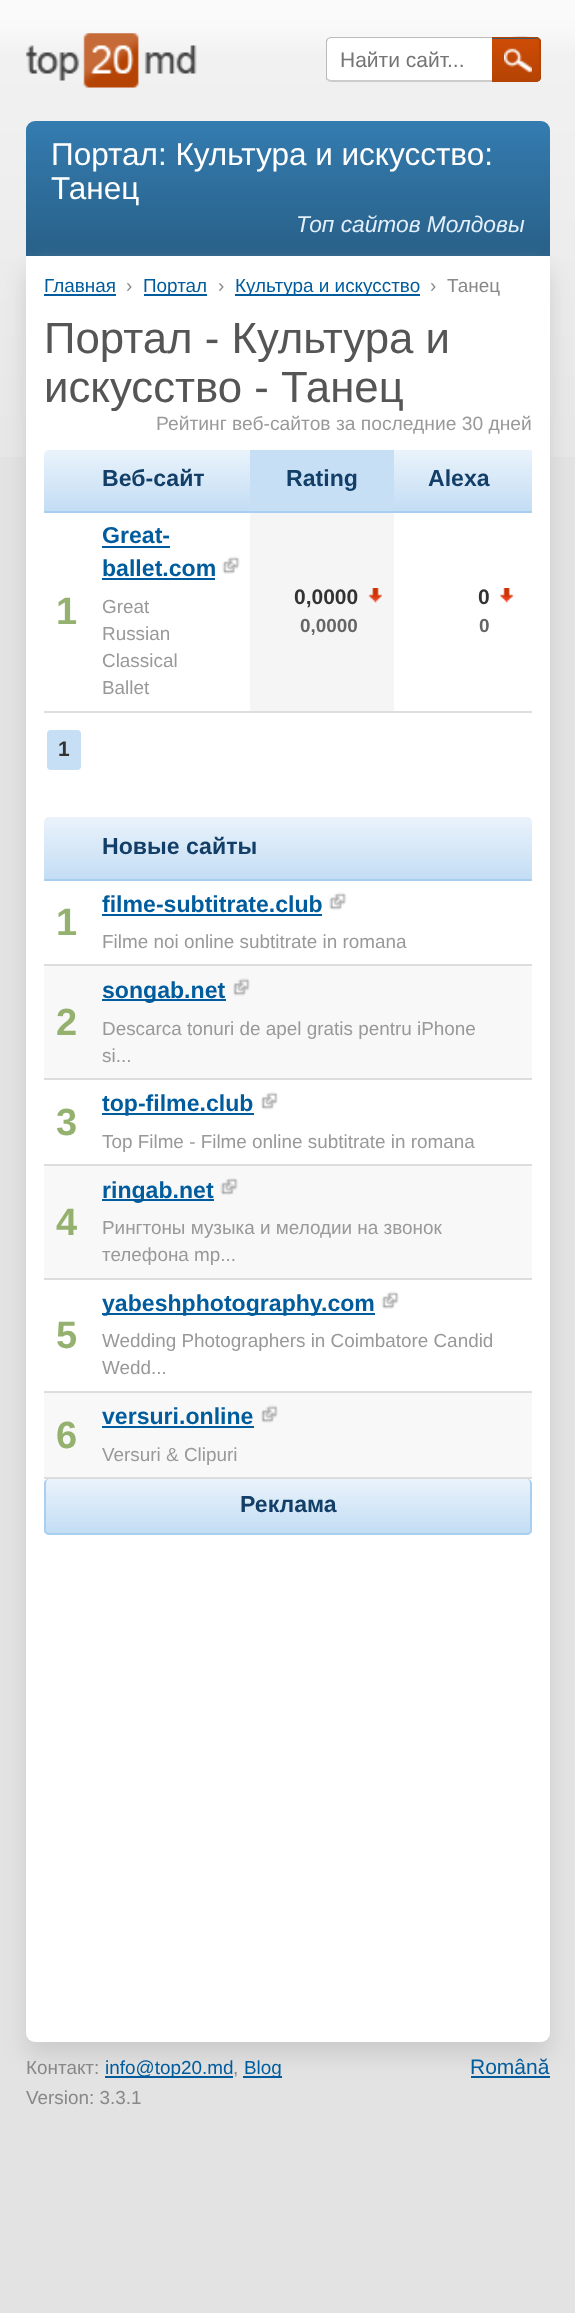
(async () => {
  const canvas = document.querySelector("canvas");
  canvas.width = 575;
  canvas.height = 2313;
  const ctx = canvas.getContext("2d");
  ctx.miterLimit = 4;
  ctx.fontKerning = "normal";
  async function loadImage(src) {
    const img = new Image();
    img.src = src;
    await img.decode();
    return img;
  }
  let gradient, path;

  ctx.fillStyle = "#e3e3e3";
  ctx.fillRect(0, 0, 575, 2313);
  ctx.drawImage(await loadImage("img/1.png"), 0, 0, 575, 457);
  ctx.drawImage(await loadImage("img/2.png"), 26, 33, 171, 55);
  ctx.fillStyle = "#ffffff";
  ctx.beginPath();
  ctx.roundRect(326, 37, 211, 45, 5);
  ctx.fill();
  ctx.fillStyle = "#bbbbbb";
  path = new Path2D("M331 37H532C535 37 537 39 537 42C537 33 505 38 498 38H331L328 39H327C328 38 329 37 331 37Z");
  ctx.fill(path);
  ctx.fillStyle = "#cccccc";
  path = new Path2D("M328 79L327 80C328 81 329 82 331 82H532C535 82 537 80 537 77C537 79 535 80 532 80H331Z");
  ctx.fill(path);
  ctx.fillStyle = "#bbbbbb";
  path = new Path2D("M328 79L327 80C326 80 326 78 326 77V42C326 41 326 39 327 39H328L327 42V78Z");
  ctx.fill(path);
  ctx.fillStyle = "#435a66";
  ctx.beginPath();
  ctx.roundRect(492, 37, 49, 45, [0, 5, 5, 0]);
  ctx.fill();
  ctx.save();
  ctx.beginPath();
  ctx.roundRect(492, 37, 49, 45, [0, 5, 5, 0]);
  ctx.clip();
  gradient = ctx.createLinearGradient(515, 39, 515, 81);
  gradient.addColorStop(0, "#ce4c05");
  gradient.addColorStop(1, "#b54304");
  ctx.fillStyle = gradient;
  ctx.fillRect(492, 39, 49, 42);
  ctx.restore();
  ctx.fillStyle = "#b54304";
  path = new Path2D("M492 37H536C538 37 541 39 541 42V77C541 80 538 82 536 82H492ZM492 38H536C537 38 539 40 539 42V77C539 79 537 80 536 80H492Z");
  ctx.fill(path, "evenodd");
  ctx.drawImage(await loadImage("img/3.png"), 504, 48, 28, 25);
  gradient = ctx.createLinearGradient(288, 121, 288, 256);
  gradient.addColorStop(0, "#347cb0");
  gradient.addColorStop(1, "#286088");
  ctx.fillStyle = gradient;
  ctx.beginPath();
  ctx.roundRect(26, 121, 524, 135, [9, 9, 0, 0]);
  ctx.fill();
  ctx.fillStyle = "#cccccc";
  ctx.filter = "blur(10.5px)";
  ctx.beginPath();
  ctx.roundRect(26, 270, 524, 1786, 9);
  ctx.fill();
  ctx.filter = "none";
  ctx.fillStyle = "#ffffff";
  ctx.beginPath();
  ctx.roundRect(26, 256, 524, 1786, [0, 0, 9, 9]);
  ctx.fill();
  for (const [x, y, w, h, color] of [
    [44, 294, 72, 2, "#005c9c"],
    [144, 294, 63, 2, "#005c9c"],
    [235, 294, 185, 2, "#005c9c"],
  ]) {
    ctx.fillStyle = color;
    ctx.fillRect(x, y, w, h);
  }
  gradient = ctx.createLinearGradient(341, 450, 341, 511);
  gradient.addColorStop(0, "#eaf3fb");
  gradient.addColorStop(1, "#c3ddf4");
  ctx.fillStyle = gradient;
  ctx.beginPath();
  ctx.roundRect(44, 450, 488, 61, [5, 0, 0, 0]);
  ctx.fill();
  for (const [x, y, w, h, color] of [
    [250, 450, 144, 61, "#c7dff5"],
    [44, 511, 488, 2, "#a9cff0"],
    [102, 546, 68, 2, "#005c9c"],
    [102, 578, 113, 2, "#005c9c"],
  ]) {
    ctx.fillStyle = color;
    ctx.fillRect(x, y, w, h);
  }
  ctx.drawImage(await loadImage("img/4.png"), 222, 556, 18, 18);
  ctx.fillStyle = "#f5f5f5";
  ctx.fillRect(250, 513, 144, 198);
  ctx.drawImage(await loadImage("img/5.png"), 368, 588, 14, 15);
  ctx.drawImage(await loadImage("img/6.png"), 500, 588, 14, 15);
  ctx.fillStyle = "#dddddd";
  ctx.fillRect(44, 711, 488, 2);
  ctx.fillStyle = "#c6dff5";
  ctx.beginPath();
  ctx.roundRect(47, 730, 34, 40, 4);
  ctx.fill();
  gradient = ctx.createLinearGradient(288, 817, 288, 880);
  gradient.addColorStop(0, "#eaf3fb");
  gradient.addColorStop(1, "#c3ddf4");
  ctx.fillStyle = gradient;
  ctx.beginPath();
  ctx.roundRect(44, 817, 488, 63, [5, 5, 0, 0]);
  ctx.fill();
  for (const [x, y, w, h, color] of [
    [44, 879, 488, 2, "#a9cff0"],
    [44, 964, 488, 2, "#dddddd"],
    [102, 914, 220, 2, "#005c9c"],
  ]) {
    ctx.fillStyle = color;
    ctx.fillRect(x, y, w, h);
  }
  ctx.drawImage(await loadImage("img/7.png"), 329, 892, 18, 18);
  for (const [x, y, w, h, color] of [
    [44, 966, 488, 112, "#f8f8f8"],
    [44, 1078, 488, 2, "#dddddd"],
    [102, 999, 124, 2, "#005c9c"],
  ]) {
    ctx.fillStyle = color;
    ctx.fillRect(x, y, w, h);
  }
  ctx.drawImage(await loadImage("img/8.png"), 233, 978, 17, 18);
  ctx.fillStyle = "#dddddd";
  ctx.fillRect(44, 1164, 488, 2);
  ctx.fillStyle = "#005c9c";
  ctx.fillRect(102, 1113, 152, 2);
  ctx.drawImage(await loadImage("img/9.png"), 261, 1092, 17, 18);
  for (const [x, y, w, h, color] of [
    [44, 1166, 488, 112, "#f8f8f8"],
    [44, 1278, 488, 2, "#dddddd"],
    [102, 1199, 112, 2, "#005c9c"],
  ]) {
    ctx.fillStyle = color;
    ctx.fillRect(x, y, w, h);
  }
  ctx.drawImage(await loadImage("img/10.png"), 220, 1178, 18, 17);
  ctx.fillStyle = "#dddddd";
  ctx.fillRect(44, 1391, 488, 2);
  ctx.fillStyle = "#005c9c";
  ctx.fillRect(102, 1313, 273, 2);
  ctx.drawImage(await loadImage("img/11.png"), 381, 1291, 18, 18);
  for (const [x, y, w, h, color] of [
    [44, 1393, 488, 84, "#f8f8f8"],
    [44, 1477, 488, 2, "#dddddd"],
    [102, 1426, 152, 2, "#005c9c"],
  ]) {
    ctx.fillStyle = color;
    ctx.fillRect(x, y, w, h);
  }
  ctx.drawImage(await loadImage("img/8.png"), 261, 1405, 17, 18);
  ctx.fillStyle = "#c7dff5";
  ctx.beginPath();
  ctx.roundRect(44, 1479, 488, 56, 5);
  ctx.fill();
  ctx.save();
  ctx.beginPath();
  ctx.roundRect(44, 1479, 488, 56, 5);
  ctx.clip();
  gradient = ctx.createLinearGradient(288, 1479, 288, 1533);
  gradient.addColorStop(0, "#eaf3fb");
  gradient.addColorStop(1, "#c3ddf4");
  ctx.fillStyle = gradient;
  ctx.beginPath();
  ctx.roundRect(44, 1479, 488, 54, [5, 5, 0, 0]);
  ctx.fill();
  ctx.restore();
  ctx.fillStyle = "#a9cff0";
  path = new Path2D("M49 1479H527C530 1479 532 1481 532 1484V1530C532 1532 530 1535 527 1535H49C46 1535 44 1532 44 1530V1484C44 1481 46 1479 49 1479ZM49 1479H527C529 1479 530 1481 530 1484V1530C530 1531 529 1533 527 1533H49C47 1533 46 1531 46 1530V1484C46 1481 47 1479 49 1479Z");
  ctx.fill(path, "evenodd");
  for (const [x, y, w, h, color] of [
    [105, 2076, 128, 2, "#005c9c"],
    [243, 2076, 39, 2, "#005c9c"],
    [471, 2076, 79, 2, "#005c9c"],
  ]) {
    ctx.fillStyle = color;
    ctx.fillRect(x, y, w, h);
  }
  ctx.font = "21px Liberation Sans";
  ctx.fillStyle = "#757575";
  ctx.fillText("Найти сайт...", 340, 67);
  ctx.font = "31.5px Liberation Sans";
  ctx.fillStyle = "#ffffff";
  ctx.fillText("Портал: Культура и искусство:", 51, 165);
  ctx.fillText("Танец", 51, 199);
  ctx.font = "italic 22.75px Liberation Sans";
  ctx.fillStyle = "#e3effa";
  ctx.fillText("Топ сайтов Молдовы", 296, 232);
  ctx.font = "18.9px Liberation Sans";
  ctx.fillStyle = "#005c9c";
  ctx.fillText("Главная", 44, 292);
  ctx.fillStyle = "#888888";
  ctx.fillText("›", 126, 292);
  ctx.fillStyle = "#005c9c";
  ctx.fillText("Портал", 143, 292);
  ctx.fillStyle = "#888888";
  ctx.fillText("›", 218, 292);
  ctx.fillStyle = "#005c9c";
  ctx.fillText("Культура и искусство", 235, 292);
  ctx.fillStyle = "#888888";
  ctx.fillText("›", 430, 292);
  ctx.fillText("Танец", 447, 292);
  ctx.font = "43.75px Liberation Sans";
  ctx.fillStyle = "#555555";
  ctx.fillText("Портал - Культура и", 44, 353);
  ctx.fillText("искусство - Танец", 44, 402);
  ctx.font = "19.25px Liberation Sans";
  ctx.fillStyle = "#999999";
  ctx.fillText("Рейтинг веб-сайтов за последние 30 дней", 156, 430);
  ctx.font = "bold 23.1px Liberation Sans";
  ctx.fillStyle = "#123e67";
  for (const [text, x, y] of [
    ["Веб-сайт", 102, 486],
    ["Rating", 286, 486],
    ["Alexa", 428, 486],
  ]) {
    ctx.fillText(text, x, y);
  }
  ctx.font = "bold 38px Liberation Sans";
  ctx.fillStyle = "#95b16f";
  ctx.fillText("1", 56, 624);
  ctx.font = "bold 23.1px Liberation Sans";
  ctx.fillStyle = "#005c9c";
  ctx.fillText("Great-", 102, 543);
  ctx.fillText("ballet.com", 102, 576);
  ctx.font = "18.9px Liberation Sans";
  ctx.fillStyle = "#999999";
  for (const [text, x, y] of [
    ["Great", 102, 613],
    ["Russian", 102, 640],
    ["Classical", 102, 667],
    ["Ballet", 102, 694],
  ]) {
    ctx.fillText(text, x, y);
  }
  ctx.font = "bold 21px Liberation Sans";
  ctx.fillStyle = "#333333";
  ctx.fillText("0,0000", 294, 604);
  ctx.font = "bold 18.9px Liberation Sans";
  ctx.fillStyle = "#666666";
  ctx.fillText("0,0000", 300, 632);
  ctx.font = "bold 21px Liberation Sans";
  ctx.fillStyle = "#333333";
  ctx.fillText("0", 478, 604);
  ctx.font = "bold 18.9px Liberation Sans";
  ctx.fillStyle = "#666666";
  ctx.fillText("0", 479, 632);
  ctx.font = "bold 21px Liberation Sans";
  ctx.fillStyle = "#333333";
  ctx.fillText("1", 58, 756);
  ctx.font = "bold 23.1px Liberation Sans";
  ctx.fillStyle = "#123e67";
  ctx.fillText("Новые сайты", 102, 854);
  ctx.font = "bold 38px Liberation Sans";
  ctx.fillStyle = "#95b16f";
  ctx.fillText("1", 56, 935);
  ctx.font = "bold 23.1px Liberation Sans";
  ctx.fillStyle = "#005c9c";
  ctx.fillText("filme-subtitrate.club", 102, 912);
  ctx.font = "18.9px Liberation Sans";
  ctx.fillStyle = "#999999";
  ctx.fillText("Filme noi online subtitrate in romana", 102, 948);
  ctx.font = "bold 38px Liberation Sans";
  ctx.fillStyle = "#95b16f";
  ctx.fillText("2", 56, 1035);
  ctx.font = "bold 23.1px Liberation Sans";
  ctx.fillStyle = "#005c9c";
  ctx.fillText("songab.net", 102, 998);
  ctx.font = "18.9px Liberation Sans";
  ctx.fillStyle = "#999999";
  ctx.fillText("Descarca tonuri de apel gratis pentru iPhone", 102, 1035);
  ctx.fillText("si...", 102, 1062);
  ctx.font = "bold 38px Liberation Sans";
  ctx.fillStyle = "#95b16f";
  ctx.fillText("3", 56, 1135);
  ctx.font = "bold 23.1px Liberation Sans";
  ctx.fillStyle = "#005c9c";
  ctx.fillText("top-filme.club", 102, 1111);
  ctx.font = "18.9px Liberation Sans";
  ctx.fillStyle = "#999999";
  ctx.fillText("Top Filme - Filme online subtitrate in romana", 102, 1148);
  ctx.font = "bold 38px Liberation Sans";
  ctx.fillStyle = "#95b16f";
  ctx.fillText("4", 56, 1235);
  ctx.font = "bold 23.1px Liberation Sans";
  ctx.fillStyle = "#005c9c";
  ctx.fillText("ringab.net", 102, 1198);
  ctx.font = "18.9px Liberation Sans";
  ctx.fillStyle = "#999999";
  ctx.fillText("Рингтоны музыка и мелодии на звонок", 102, 1234);
  ctx.fillText("телефона mp...", 102, 1261);
  ctx.font = "bold 38px Liberation Sans";
  ctx.fillStyle = "#95b16f";
  ctx.fillText("5", 56, 1348);
  ctx.font = "bold 23.1px Liberation Sans";
  ctx.fillStyle = "#005c9c";
  ctx.fillText("yabeshphotography.com", 102, 1311);
  ctx.font = "18.9px Liberation Sans";
  ctx.fillStyle = "#999999";
  ctx.fillText("Wedding Photographers in Coimbatore Candid", 102, 1347);
  ctx.fillText("Wedd...", 102, 1374);
  ctx.font = "bold 38px Liberation Sans";
  ctx.fillStyle = "#95b16f";
  ctx.fillText("6", 56, 1448);
  ctx.font = "bold 23.1px Liberation Sans";
  ctx.fillStyle = "#005c9c";
  ctx.fillText("versuri.online", 102, 1424);
  ctx.font = "18.9px Liberation Sans";
  ctx.fillStyle = "#999999";
  ctx.fillText("Versuri & Clipuri", 102, 1461);
  ctx.font = "bold 23.1px Liberation Sans";
  ctx.fillStyle = "#123e67";
  ctx.fillText("Реклама", 240, 1512);
  ctx.font = "18.9px Liberation Sans";
  ctx.fillStyle = "#888888";
  ctx.fillText("Контакт:", 26, 2074);
  ctx.fillStyle = "#005c9c";
  ctx.fillText("info@top20.md", 105, 2074);
  ctx.fillStyle = "#888888";
  ctx.fillText(",", 233, 2074);
  ctx.fillStyle = "#005c9c";
  ctx.fillText("Blog", 244, 2074);
  ctx.fillStyle = "#888888";
  ctx.fillText("Version: 3.3.1", 26, 2104);
  ctx.font = "21px Liberation Sans";
  ctx.fillStyle = "#005c9c";
  ctx.fillText("Română", 470, 2074);
})();
